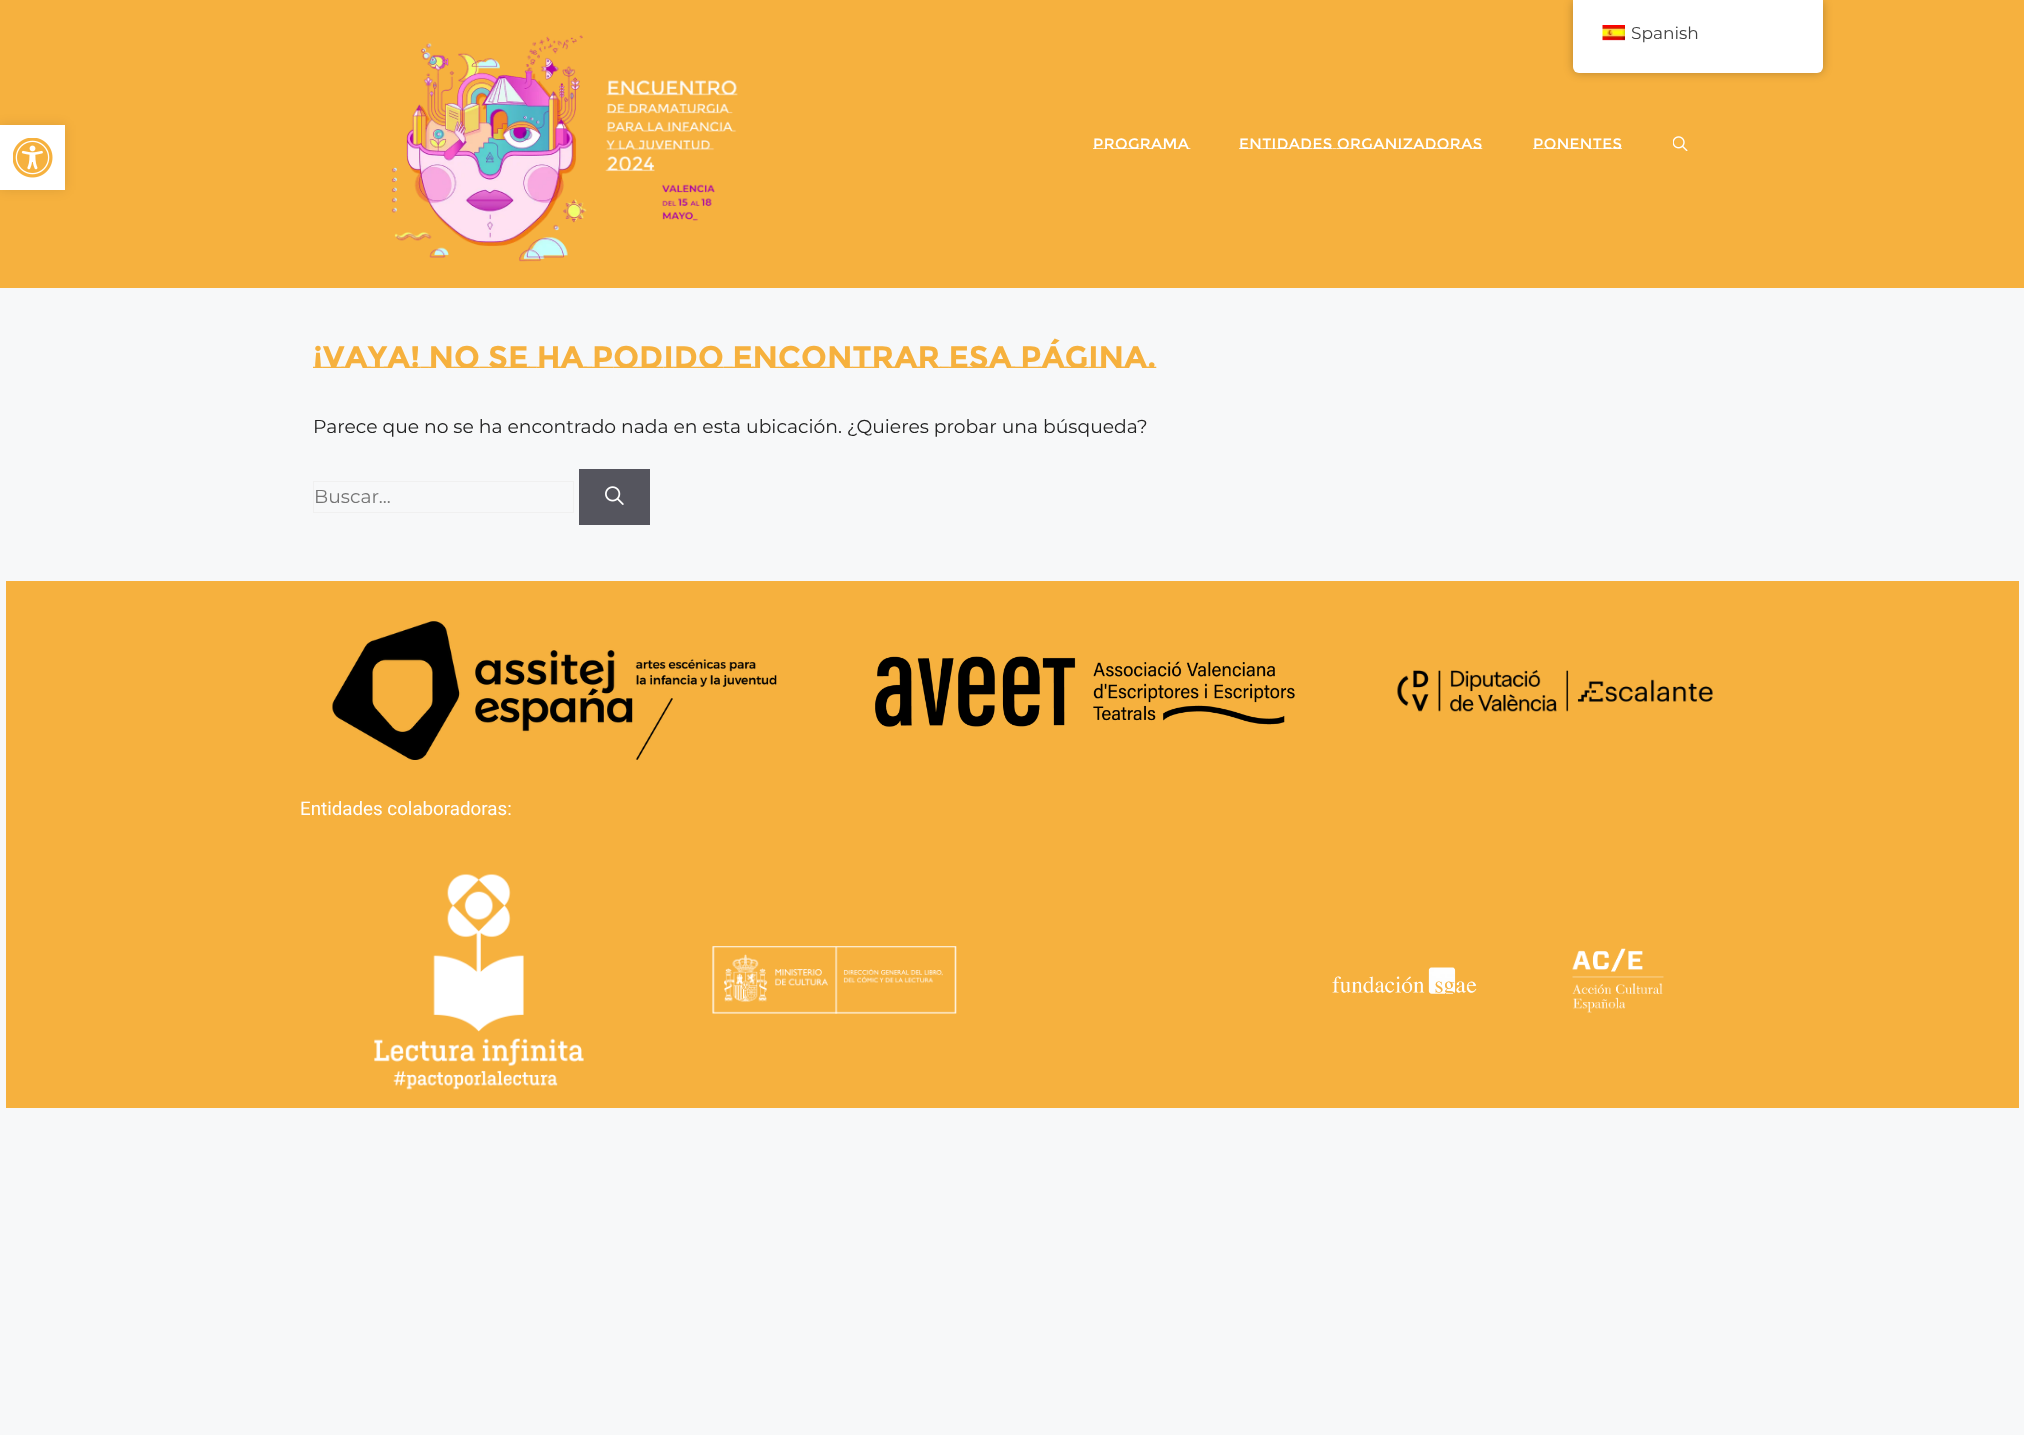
(async () => {
  const canvas = document.querySelector("canvas");
  canvas.width = 2024;
  canvas.height = 1435;
  const ctx = canvas.getContext("2d");
  ctx.miterLimit = 4;
  ctx.fontKerning = "normal";
  async function loadImage(src) {
    const img = new Image();
    img.src = src;
    await img.decode();
    return img;
  }

  ctx.fillStyle = "#f7f8f9";
  ctx.fillRect(0, 0, 2024, 1435);
  ctx.fillStyle = "#f6b13e";
  ctx.fillRect(0, 0, 2024, 288);
  ctx.fillStyle = "rgba(0, 0, 0, 0.25)";
  ctx.filter = "blur(5px)";
  ctx.beginPath();
  ctx.roundRect(1573, 0, 250, 73, 6);
  ctx.fill();
  ctx.filter = "none";
  ctx.fillStyle = "#ffffff";
  ctx.beginPath();
  ctx.roundRect(1573, 0, 250, 73, [0, 0, 6, 6]);
  ctx.fill();
  ctx.drawImage(await loadImage("img/1.png"), 1602, 25, 23, 16);
  ctx.fillStyle = "rgba(0, 0, 0, 0.1)";
  ctx.filter = "blur(6px)";
  ctx.beginPath();
  ctx.rect(0, 125, 65, 65);
  ctx.fill();
  ctx.filter = "none";
  ctx.fillStyle = "#ffffff";
  ctx.fillRect(0, 125, 65, 65);
  ctx.drawImage(await loadImage("img/2.png"), 13, 138, 40, 40);
  ctx.drawImage(await loadImage("img/3.png"), 391, 35, 347, 227);
  ctx.drawImage(await loadImage("img/4.png"), 1673, 136, 15, 15);
  ctx.strokeStyle = "#f0f0f0";
  ctx.strokeRect(313.5, 481.5, 260, 31);
  ctx.fillStyle = "#55555e";
  ctx.fillRect(579, 469, 71, 56);
  ctx.drawImage(await loadImage("img/5.png"), 605, 486, 19, 19);
  ctx.fillStyle = "#f6b13e";
  ctx.fillRect(6, 581, 2013, 527);
  ctx.drawImage(await loadImage("img/6.png"), 332, 621, 445, 139);
  ctx.drawImage(await loadImage("img/7.png"), 875, 656, 420, 71);
  ctx.drawImage(await loadImage("img/8.png"), 1397, 670, 316, 42);
  ctx.drawImage(await loadImage("img/9.png"), 374, 874, 210, 216);
  ctx.drawImage(await loadImage("img/10.png"), 712, 946, 245, 68);
  ctx.drawImage(await loadImage("img/11.png"), 1332, 967, 145, 27);
  ctx.drawImage(await loadImage("img/12.png"), 1572, 948, 92, 65);
  ctx.font = "17px Montserrat";
  ctx.fillStyle = "#404040";
  ctx.fillText("Spanish", 1631, 39);
  ctx.letterSpacing = "0.4px";
  ctx.font = "15px Montserrat Subrayada";
  ctx.fillStyle = "#ffffff";
  for (const [text, x, y] of [
    ["programa", 1093, 149],
    ["entidades organizadoras", 1239, 149],
    ["ponentes", 1533, 149],
  ]) {
    ctx.fillText(text, x, y);
  }
  ctx.letterSpacing = "0px";
  ctx.font = "bold 31.25px Montserrat Subrayada";
  ctx.fillStyle = "#f6b13e";
  ctx.fillText("¡Vaya! No se ha podido encontrar esa página.", 313, 368);
  ctx.font = "18.75px Montserrat";
  ctx.fillStyle = "#222222";
  ctx.fillText("Parece que no se ha encontrado nada en esta ubicación. ¿Quieres probar una búsqueda?", 313, 433);
  ctx.fillStyle = "#757575";
  ctx.fillText("Buscar...", 314, 503);
  ctx.font = "18.75px Roboto";
  ctx.fillStyle = "#ffffff";
  ctx.fillText("Entidades colaboradoras:", 300, 815);
})();
